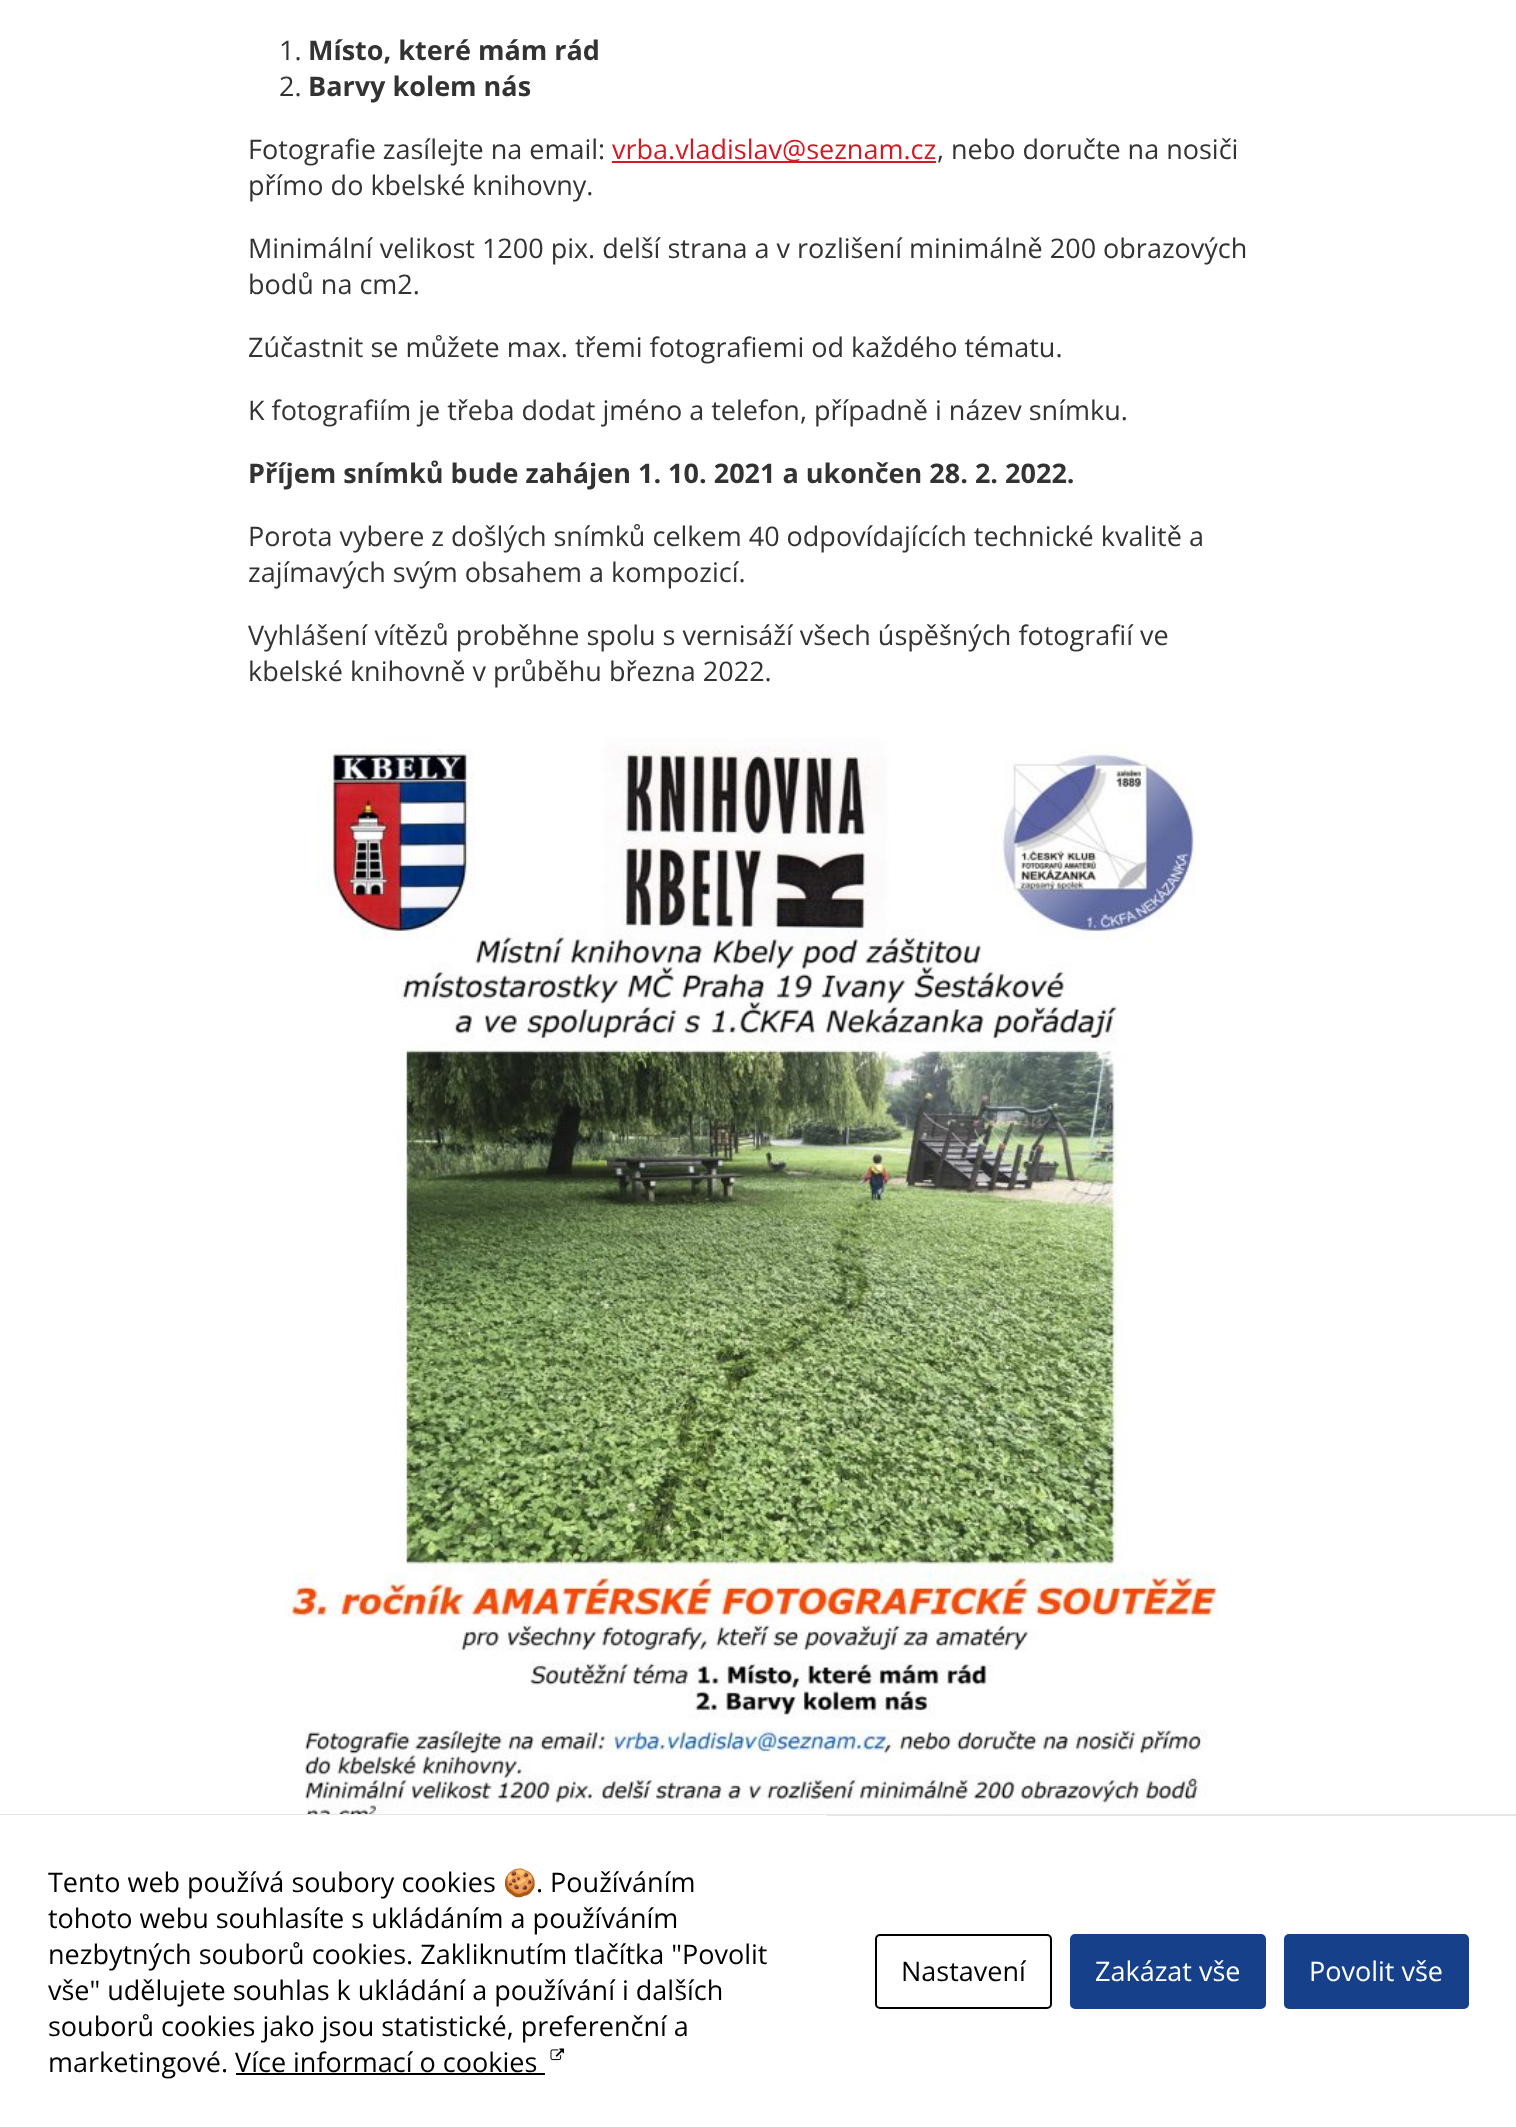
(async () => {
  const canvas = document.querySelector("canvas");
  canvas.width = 1516;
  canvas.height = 2127;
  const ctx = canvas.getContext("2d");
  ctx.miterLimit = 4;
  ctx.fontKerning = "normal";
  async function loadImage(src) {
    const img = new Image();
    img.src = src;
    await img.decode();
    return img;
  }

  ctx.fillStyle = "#ffffff";
  ctx.fillRect(0, 0, 1516, 2127);
  ctx.fillStyle = "#d31a24";
  ctx.fillRect(612, 161, 324, 2);
  ctx.drawImage(await loadImage("img/1.png"), 283, 738, 946, 1076);
  ctx.fillStyle = "#e6e6e6";
  ctx.fillRect(0, 1814, 1516, 2);
  ctx.fillStyle = "#ffffff";
  ctx.fillRect(0, 1815, 827, 1);
  ctx.drawImage(await loadImage("img/2.png"), 550, 2048, 14, 13);
  ctx.fillStyle = "#000000";
  ctx.fillRect(236, 2073, 309, 2);
  ctx.beginPath();
  ctx.roundRect(876, 1935, 175, 73, 4);
  ctx.strokeStyle = "#000000";
  ctx.lineWidth = 2;
  ctx.stroke();
  ctx.fillStyle = "#16408a";
  ctx.beginPath();
  ctx.roundRect(1071, 1935, 194, 73, 4);
  ctx.fill();
  ctx.strokeStyle = "#16408a";
  ctx.stroke();
  ctx.beginPath();
  ctx.roundRect(1285, 1935, 183, 73, 4);
  ctx.fill();
  ctx.stroke();
  ctx.font = "27px Open Sans";
  ctx.fillStyle = "#333333";
  ctx.fillText("1.", 279, 60);
  ctx.font = "bold 27px Open Sans";
  ctx.fillText("Místo, které mám rád", 308, 60);
  ctx.font = "27px Open Sans";
  ctx.fillText("2.", 279, 96);
  ctx.font = "bold 27px Open Sans";
  ctx.fillText("Barvy kolem nás", 308, 96);
  ctx.font = "27px Open Sans";
  ctx.fillText("Fotografie zasílejte na email:", 248, 159);
  ctx.fillStyle = "#d31a24";
  ctx.fillText("vrba.vladislav@seznam.cz", 612, 159);
  ctx.fillStyle = "#333333";
  for (const [text, x, y] of [
    [", nebo doručte na nosiči", 937, 159],
    ["přímo do kbelské knihovny.", 248, 195],
    ["Minimální velikost 1200 pix. delší strana a v rozlišení minimálně 200 obrazových", 248, 258],
    ["bodů na cm2.", 248, 294],
    ["Zúčastnit se můžete max. třemi fotografiemi od každého tématu.", 248, 357],
    ["K fotografiím je třeba dodat jméno a telefon, případně i název snímku.", 248, 420],
  ]) {
    ctx.fillText(text, x, y);
  }
  ctx.font = "bold 27px Open Sans";
  ctx.fillText("Příjem snímků bude zahájen 1. 10. 2021 a ukončen 28. 2. 2022.", 248, 483);
  ctx.font = "27px Open Sans";
  for (const [text, x, y] of [
    ["Porota vybere z došlých snímků celkem 40 odpovídajících technické kvalitě a", 248, 546],
    ["zajímavých svým obsahem a kompozicí.", 248, 582],
    ["Vyhlášení vítězů proběhne spolu s vernisáží všech úspěšných fotografií ve", 248, 645],
    ["kbelské knihovně v průběhu března 2022.", 248, 681],
  ]) {
    ctx.fillText(text, x, y);
  }
  ctx.fillStyle = "#000000";
  ctx.fillText("Tento web používá soubory cookies", 48, 1892);
  ctx.font = "27px Noto Color Emoji";
  ctx.fillText("🍪", 503, 1892);
  ctx.font = "27px Open Sans";
  for (const [text, x, y] of [
    [". Používáním", 536, 1892],
    ["tohoto webu souhlasíte s ukládáním a používáním", 48, 1928],
    ["nezbytných souborů cookies. Zakliknutím tlačítka \"Povolit", 48, 1964],
    ["vše\" udělujete souhlas k ukládání a používání i dalších", 48, 2000],
    ["souborů cookies jako jsou statistické, preferenční a", 48, 2036],
    ["marketingové. Více informací o cookies", 48, 2072],
    ["Nastavení", 901, 1981],
  ]) {
    ctx.fillText(text, x, y);
  }
  ctx.fillStyle = "#ffffff";
  ctx.fillText("Zakázat vše", 1095, 1981);
  ctx.fillText("Povolit vše", 1309, 1981);
})();
